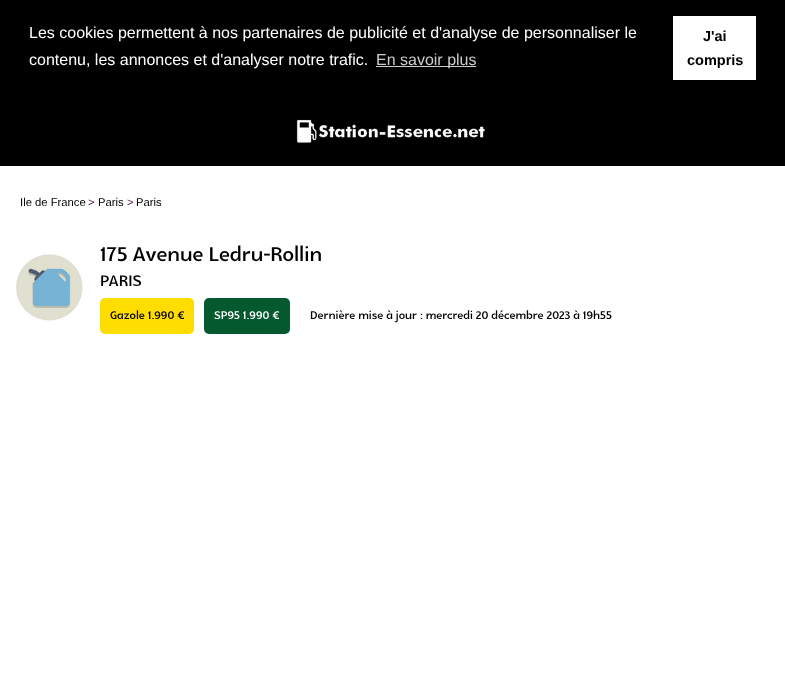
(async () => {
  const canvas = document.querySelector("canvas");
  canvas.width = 785;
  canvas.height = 691;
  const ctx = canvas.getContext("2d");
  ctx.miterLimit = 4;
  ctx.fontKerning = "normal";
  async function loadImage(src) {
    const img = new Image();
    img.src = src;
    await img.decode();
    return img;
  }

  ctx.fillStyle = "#ffffff";
  ctx.fillRect(0, 0, 785, 691);
  ctx.fillStyle = "#000000";
  ctx.fillRect(0, 0, 785, 166);
  ctx.drawImage(await loadImage("img/1.png"), 296, 119, 189, 24);
  ctx.fillStyle = "#cccccc";
  ctx.fillRect(376, 66, 100, 1);
  ctx.fillStyle = "#ffffff";
  ctx.fillRect(673, 16, 83, 64);
  ctx.drawImage(await loadImage("img/2.png"), 16, 254, 67, 67);
  ctx.fillStyle = "#ffdd00";
  ctx.beginPath();
  ctx.roundRect(100, 298, 94, 36, 5);
  ctx.fill();
  ctx.fillStyle = "#04592f";
  ctx.beginPath();
  ctx.roundRect(204, 298, 86, 36, 5);
  ctx.fill();
  ctx.font = "16px Liberation Sans";
  ctx.fillStyle = "#ffffff";
  ctx.fillText("Les cookies permettent à nos partenaires de publicité et d'analyse de personnaliser le", 29, 38);
  ctx.fillText("contenu, les annonces et d'analyser notre trafic.", 29, 65);
  ctx.fillStyle = "#cccccc";
  ctx.fillText("En savoir plus", 376, 65);
  ctx.font = "bold 14.5px Liberation Sans";
  ctx.fillStyle = "#000000";
  ctx.fillText("J'ai", 703, 41);
  ctx.fillText("compris", 687, 65);
  ctx.font = "11.25px Liberation Sans";
  ctx.fillText("Ile de France", 20, 206);
  ctx.fillStyle = "#480d3e";
  ctx.fillText(">", 88, 206);
  ctx.fillStyle = "#000000";
  ctx.fillText("Paris", 98, 206);
  ctx.fillStyle = "#480d3e";
  ctx.fillText(">", 127, 206);
  ctx.fillStyle = "#000000";
  ctx.fillText("Paris", 136, 206);
  ctx.font = "bold 28.75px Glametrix";
  ctx.fillText("175 Avenue Ledru-Rollin", 100, 261);
  ctx.font = "bold 22px Glametrix";
  ctx.fillText("PARIS", 100, 286);
  ctx.font = "bold 16px Glametrix";
  ctx.fillText("Gazole 1.990 €", 110, 319);
  ctx.fillStyle = "#ffffff";
  ctx.fillText("SP95 1.990 €", 214, 319);
  ctx.fillStyle = "#000000";
  ctx.fillText("Dernière mise à jour : mercredi 20 décembre 2023 à 19h55", 310, 319);
})();
